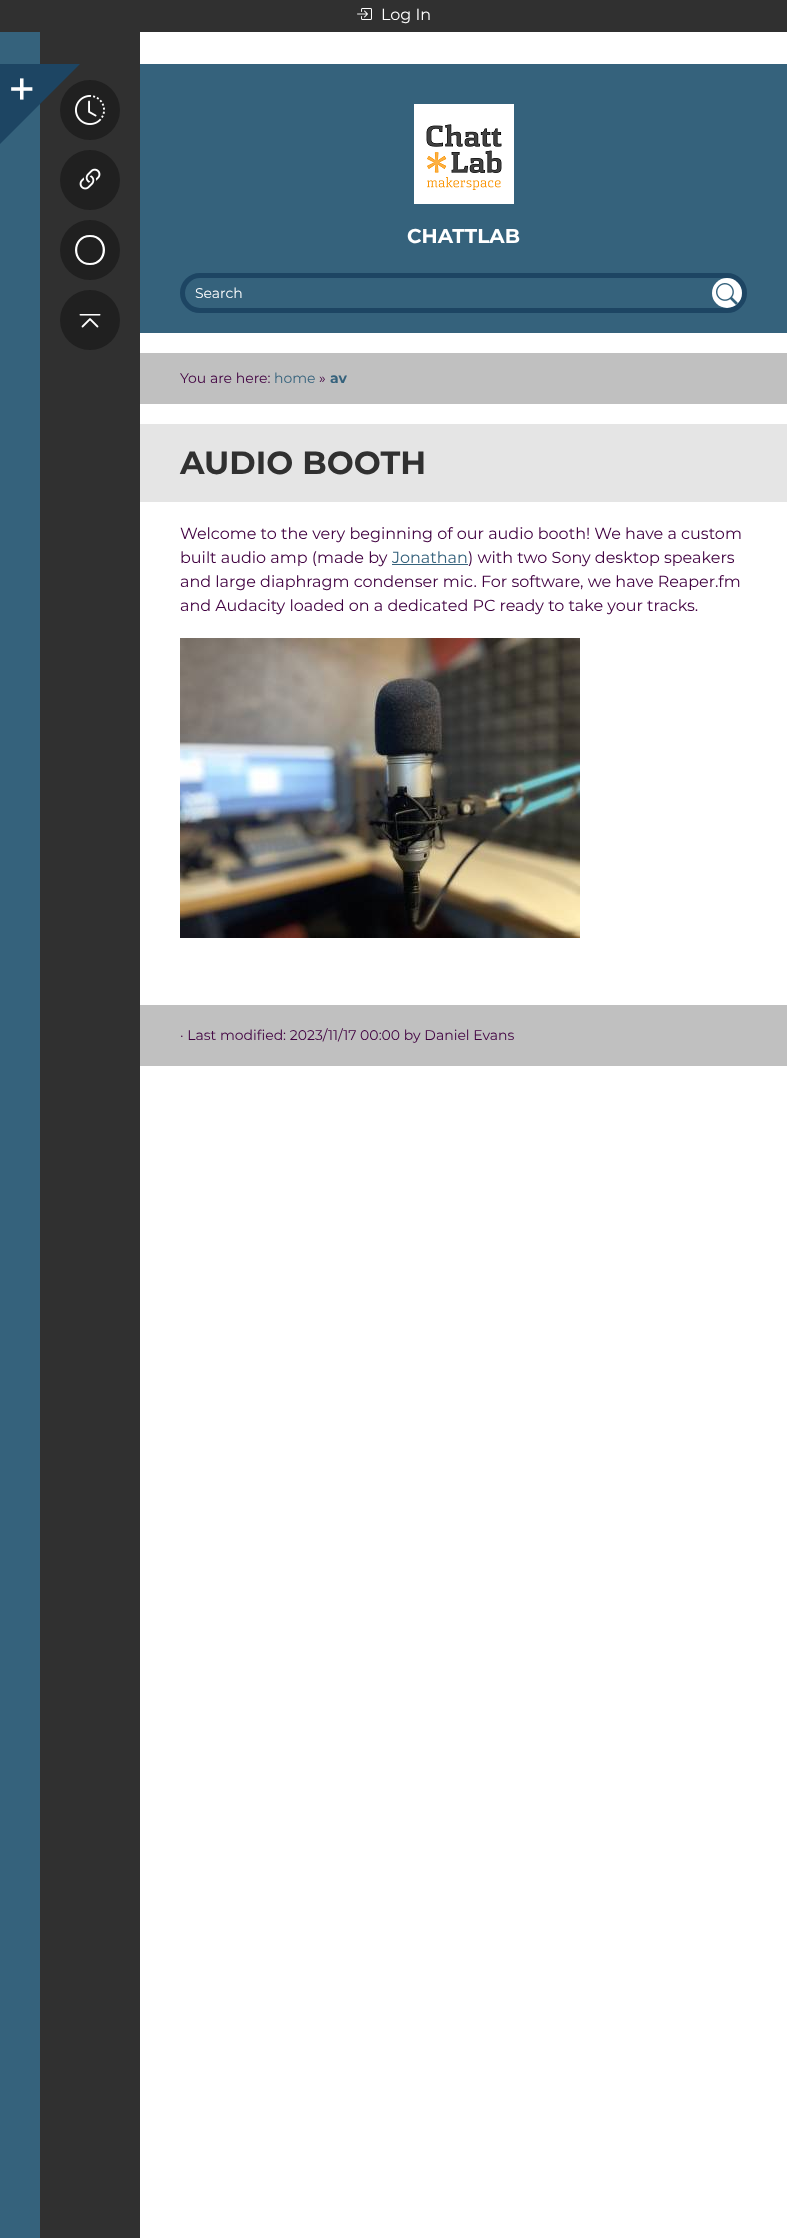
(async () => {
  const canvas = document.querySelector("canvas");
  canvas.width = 787;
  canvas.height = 2238;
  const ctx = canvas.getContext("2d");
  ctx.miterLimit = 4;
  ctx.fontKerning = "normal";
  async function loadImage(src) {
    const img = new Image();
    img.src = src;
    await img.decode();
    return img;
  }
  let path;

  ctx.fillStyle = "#303030";
  ctx.fillRect(0, 0, 787, 2238);
  ctx.drawImage(await loadImage("img/1.png"), 357, 8, 15, 12);
  ctx.fillStyle = "#35627c";
  ctx.fillRect(0, 32, 40, 2206);
  ctx.fillStyle = "#1d4563";
  path = new Path2D("M40 64H80L40 104Z");
  ctx.fill(path);
  ctx.fillStyle = "#202020";
  ctx.beginPath();
  ctx.arc(90, 110, 30, 0, Math.PI * 2);
  ctx.fill();
  ctx.drawImage(await loadImage("img/2.png"), 75, 95, 30, 30);
  ctx.beginPath();
  ctx.arc(90, 180, 30, 0, Math.PI * 2);
  ctx.fill();
  ctx.drawImage(await loadImage("img/3.png"), 79, 168, 22, 22);
  ctx.beginPath();
  ctx.arc(90, 250, 30, 0, Math.PI * 2);
  ctx.fill();
  ctx.fillStyle = "#ffffff";
  path = new Path2D("M90 263C73 263 73 237 90 237C107 237 107 263 90 263ZM90 265C110 265 110 235 90 235C70 235 70 265 90 265Z");
  ctx.fill(path);
  ctx.fillStyle = "#202020";
  ctx.beginPath();
  ctx.arc(90, 320, 30, 0, Math.PI * 2);
  ctx.fill();
  ctx.drawImage(await loadImage("img/4.png"), 79, 314, 22, 14);
  ctx.fillStyle = "#ffffff";
  ctx.fillRect(140, 32, 647, 2206);
  ctx.fillStyle = "#1d4563";
  ctx.fillRect(0, 64, 40, 40);
  ctx.drawImage(await loadImage("img/5.png"), 11, 78, 22, 22);
  path = new Path2D("M0 104H40L0 144Z");
  ctx.fill(path);
  ctx.fillStyle = "#35627c";
  ctx.fillRect(140, 64, 647, 269);
  ctx.drawImage(await loadImage("img/6.png"), 414, 104, 100, 100);
  ctx.beginPath();
  ctx.roundRect(182.5, 275.5, 562, 35, 17.5);
  ctx.strokeStyle = "#1d4563";
  ctx.lineWidth = 5;
  ctx.stroke();
  ctx.drawImage(await loadImage("img/8.png"), 736, 303, 2, 2);
  ctx.fillStyle = "#ffffff";
  ctx.beginPath();
  ctx.arc(727, 293, 15, 0, Math.PI * 2);
  ctx.fill();
  ctx.drawImage(await loadImage("img/7.png"), 716, 283, 22, 22);
  for (const [x, y, w, h, color] of [
    [140, 353, 647, 51, "#c0c0c0"],
    [140, 424, 647, 78, "#e5e5e5"],
    [392, 564, 76, 1, "#35627c"],
  ]) {
    ctx.fillStyle = color;
    ctx.fillRect(x, y, w, h);
  }
  ctx.drawImage(await loadImage("img/9.png"), 180, 638, 400, 300);
  ctx.fillStyle = "#c0c0c0";
  ctx.fillRect(140, 1005, 647, 61);
  ctx.font = "16px Montserrat";
  ctx.fillStyle = "#ffffff";
  ctx.fillText("Log In", 381, 20);
  ctx.font = "bold 20px Montserrat";
  ctx.fillText("CHATTLAB", 407, 243);
  ctx.font = "14px Montserrat";
  ctx.fillText("Search", 195, 298);
  ctx.fillStyle = "#400040";
  ctx.fillText("You are here:", 180, 383);
  ctx.fillStyle = "#35627c";
  ctx.fillText("home", 274, 383);
  ctx.fillStyle = "#400040";
  ctx.fillText("»", 319, 383);
  ctx.font = "bold 14px Montserrat";
  ctx.fillStyle = "#35627c";
  ctx.fillText("av", 330, 383);
  ctx.font = "bold 32px Montserrat";
  ctx.fillStyle = "#303030";
  ctx.fillText("AUDIO BOOTH", 180, 474);
  ctx.font = "16px Montserrat";
  ctx.fillStyle = "#400040";
  ctx.fillText("Welcome to the very beginning of our audio booth! We have a custom", 180, 539);
  ctx.fillText("built audio amp (made by", 180, 563);
  ctx.fillStyle = "#35627c";
  ctx.fillText("Jonathan", 392, 563);
  ctx.fillStyle = "#400040";
  for (const [text, x, y] of [
    [") with two Sony desktop speakers", 468, 563],
    ["and large diaphragm condenser mic. For software, we have Reaper.fm", 180, 587],
    ["and Audacity loaded on a dedicated PC ready to take your tracks.", 180, 611],
  ]) {
    ctx.fillText(text, x, y);
  }
  ctx.font = "14px Montserrat";
  ctx.fillText("· Last modified: 2023/11/17 00:00 by Daniel Evans", 180, 1040);
})();
